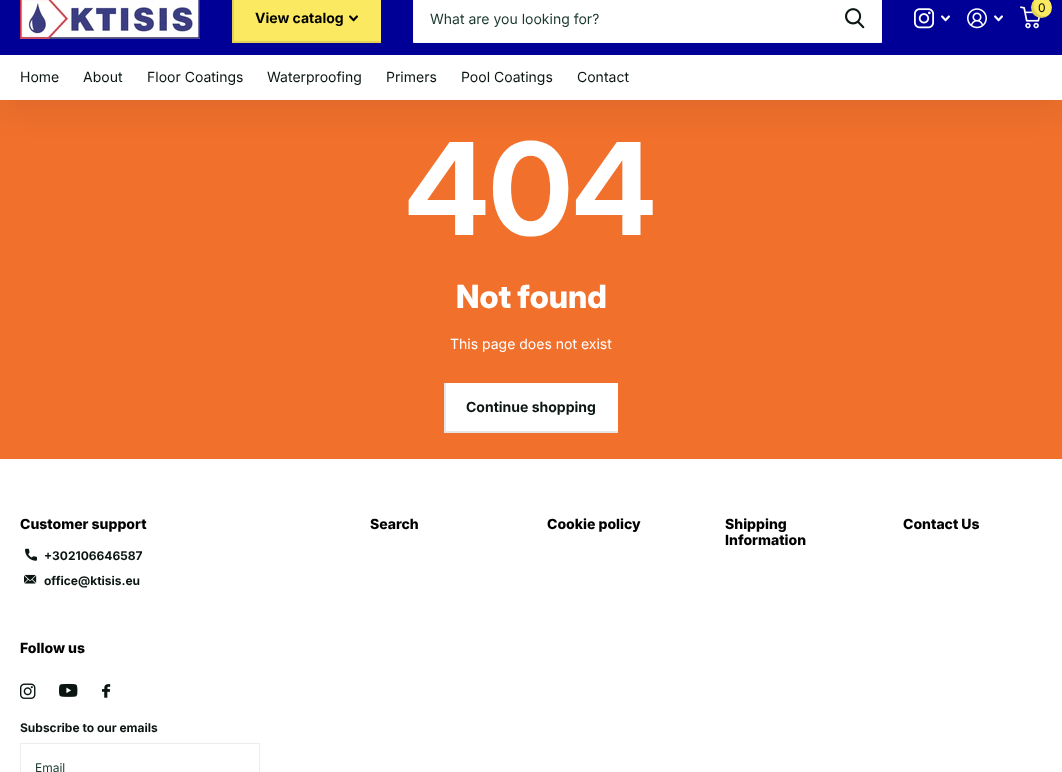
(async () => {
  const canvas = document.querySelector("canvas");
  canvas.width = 1062;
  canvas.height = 772;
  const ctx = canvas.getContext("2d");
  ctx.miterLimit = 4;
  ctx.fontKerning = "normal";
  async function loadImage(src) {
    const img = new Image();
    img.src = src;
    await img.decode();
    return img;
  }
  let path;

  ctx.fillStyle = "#f0702c";
  ctx.fillRect(0, 0, 1062, 772);
  ctx.fillStyle = "rgba(0, 0, 0, 0.07)";
  ctx.filter = "blur(16px)";
  ctx.beginPath();
  ctx.rect(0, -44, 1062, 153);
  ctx.fill();
  ctx.filter = "none";
  ctx.fillStyle = "#000096";
  ctx.fillRect(0, 0, 1062, 55);
  ctx.fillStyle = "#fafafa";
  ctx.fillRect(0, 99, 1062, 1);
  ctx.drawImage(await loadImage("img/1.png"), 20, 0, 180, 39);
  ctx.drawImage(await loadImage("img/2.png"), 914, 8, 20, 21);
  ctx.drawImage(await loadImage("img/3.png"), 941, 15, 9, 7);
  ctx.drawImage(await loadImage("img/4.png"), 967, 8, 20, 21);
  ctx.drawImage(await loadImage("img/3.png"), 994, 15, 9, 7);
  ctx.drawImage(await loadImage("img/5.png"), 1020, 6, 20, 23);
  ctx.fillStyle = "#fbea61";
  ctx.beginPath();
  ctx.arc(1041.5, 7.5, 10.5, 0, Math.PI * 2);
  ctx.fill();
  ctx.fillStyle = "rgba(0, 0, 0, 0.1)";
  path = new Path2D("M1049.5 14.5C1040 20.5 1028.5 8 1036-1.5C1030.5 2.5 1029.5 10 1034 15C1038.5 19 1045.5 19 1049.5 14.5Z");
  ctx.fill(path);
  ctx.fillStyle = "#fbea61";
  ctx.fillRect(234, 0, 147, 41);
  ctx.save();
  ctx.beginPath();
  ctx.rect(232, 0, 149, 43);
  ctx.clip();
  ctx.fillStyle = "#e2d357";
  path = new Path2D("M133-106H480V142H133ZM234-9H383V41H234Z");
  ctx.fill(path, "evenodd");
  ctx.restore();
  ctx.drawImage(await loadImage("img/6.png"), 349, 15, 9, 7);
  ctx.fillStyle = "#ffffff";
  ctx.beginPath();
  ctx.rect(413.5, -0.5, 468, 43);
  ctx.fill();
  ctx.strokeStyle = "#fafafa";
  ctx.stroke();
  ctx.drawImage(await loadImage("img/7.png"), 845, 8, 20, 21);
  ctx.fillRect(0, 55, 1062, 44);
  ctx.fillRect(446, 383, 172, 48);
  ctx.save();
  ctx.beginPath();
  ctx.rect(444, 383, 174, 50);
  ctx.clip();
  ctx.fillStyle = "#e6e6e6";
  path = new Path2D("M345 284H717V532H345ZM446 381H620V431H446Z");
  ctx.fill(path, "evenodd");
  ctx.restore();
  ctx.fillRect(0, 459, 1062, 313);
  ctx.drawImage(await loadImage("img/8.png"), 25, 548, 12, 13);
  ctx.drawImage(await loadImage("img/9.png"), 24, 574, 13, 10);
  ctx.drawImage(await loadImage("img/10.png"), 20, 683, 16, 16);
  ctx.drawImage(await loadImage("img/11.png"), 59, 683, 19, 14);
  ctx.drawImage(await loadImage("img/12.png"), 102, 684, 9, 14);
  ctx.strokeStyle = "#ecedec";
  ctx.strokeRect(20.5, 743.5, 239, 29);
  ctx.font = "12px Inter";
  ctx.fillStyle = "#000000";
  ctx.fillText("0", 1038, 12);
  ctx.font = "bold 14px 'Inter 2'";
  ctx.fillText("View catalog", 255, 23);
  ctx.font = "14px Inter";
  ctx.fillStyle = "#1c3830";
  ctx.fillText("What are you looking for?", 430, 24);
  ctx.fillStyle = "#0b1613";
  for (const [text, x, y] of [
    ["Home", 20, 82],
    ["About", 83, 82],
    ["Floor Coatings", 147, 82],
    ["Waterproofing", 267, 82],
    ["Primers", 386, 82],
    ["Pool Coatings", 461, 82],
    ["Contact", 577, 82],
  ]) {
    ctx.fillText(text, x, y);
  }
  ctx.font = "bold 128px Inter";
  ctx.fillStyle = "#ffffff";
  ctx.fillText("404", 405, 235);
  ctx.font = "800 32px Inter";
  ctx.fillText("Not found", 456, 308);
  ctx.font = "14px Inter";
  ctx.fillText("This page does not exist", 450, 349);
  ctx.font = "bold 14px 'Inter 2'";
  ctx.fillStyle = "#0b1613";
  ctx.fillText("Continue shopping", 466, 412);
  ctx.font = "800 14px 'Inter 2'";
  ctx.fillStyle = "#000000";
  ctx.fillText("Customer support", 20, 529);
  ctx.font = "bold 12px 'Inter 2'";
  ctx.fillStyle = "#0b1613";
  ctx.fillText("+302106646587", 44, 560);
  ctx.fillText("office@ktisis.eu", 44, 585);
  ctx.font = "800 14px 'Inter 2'";
  ctx.fillStyle = "#000000";
  for (const [text, x, y] of [
    ["Search", 370, 529],
    ["Cookie policy", 547, 529],
    ["Shipping", 725, 529],
    ["Information", 725, 545],
    ["Contact Us", 903, 529],
    ["Follow us", 20, 653],
  ]) {
    ctx.fillText(text, x, y);
  }
  ctx.font = "bold 12px 'Inter 2'";
  ctx.fillStyle = "#0b1613";
  ctx.fillText("Subscribe to our emails", 20, 732);
  ctx.font = "12px Inter";
  ctx.fillStyle = "#1c3830";
  ctx.fillText("Email", 35, 772);
})();
